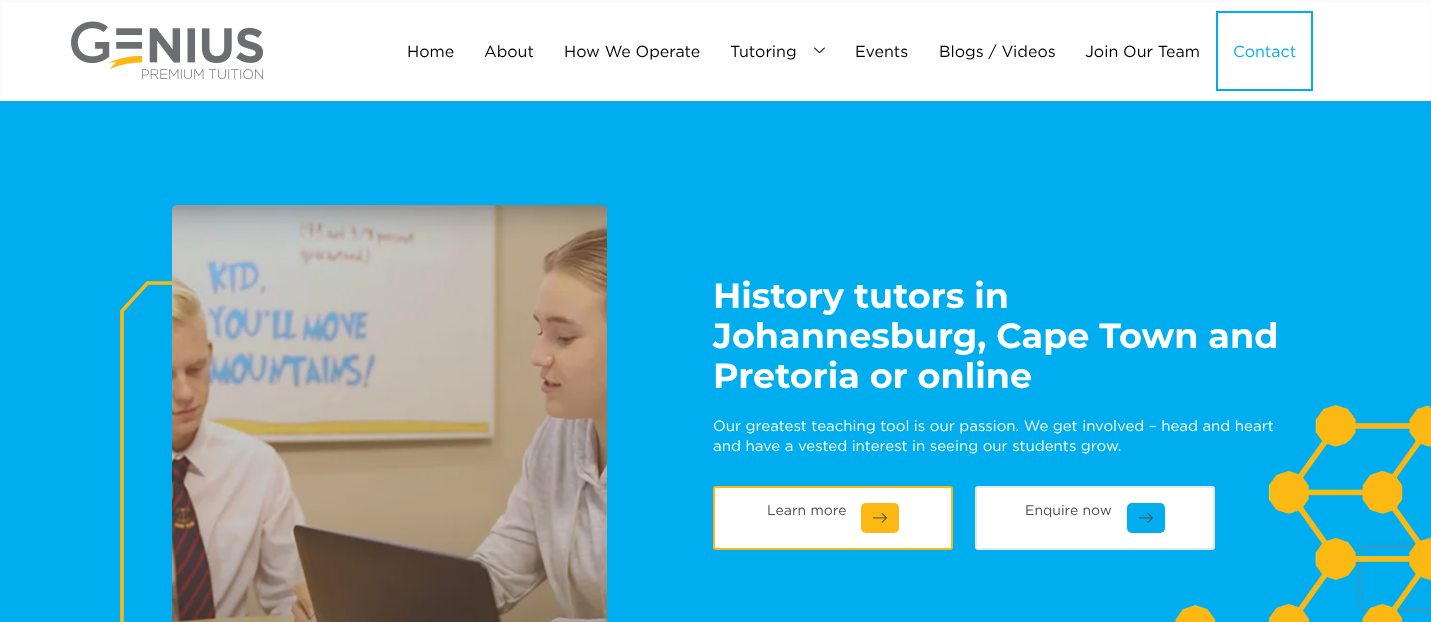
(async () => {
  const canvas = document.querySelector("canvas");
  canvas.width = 1431;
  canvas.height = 622;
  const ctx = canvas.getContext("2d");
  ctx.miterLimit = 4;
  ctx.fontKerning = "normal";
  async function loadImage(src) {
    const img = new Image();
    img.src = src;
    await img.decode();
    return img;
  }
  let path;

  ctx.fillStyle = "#00adef";
  ctx.fillRect(0, 0, 1431, 622);
  ctx.fillStyle = "#ffffff";
  ctx.beginPath();
  ctx.rect(1.5, 1.5, 1428, 98);
  ctx.fill();
  ctx.strokeStyle = "#fcfcfc";
  ctx.lineWidth = 3;
  ctx.stroke();
  ctx.drawImage(await loadImage("img/1.png"), 71, 21, 193, 59);
  ctx.drawImage(await loadImage("img/2.png"), 814, 47, 11, 7);
  ctx.strokeStyle = "#00adef";
  ctx.lineWidth = 2;
  ctx.strokeRect(1217, 12, 95, 78);
  path = new Path2D("M122 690V311L147.5 283H223.5");
  ctx.strokeStyle = "#fdb813";
  ctx.lineWidth = 3.6;
  ctx.stroke(path);
  ctx.drawImage(await loadImage("img/3.png"), 172, 205, 435, 417);
  ctx.beginPath();
  ctx.roundRect(714, 487, 238, 62, 2);
  ctx.fill();
  ctx.lineWidth = 2;
  ctx.stroke();
  ctx.fillStyle = "#fdb813";
  ctx.beginPath();
  ctx.roundRect(861, 503, 38, 30, 5);
  ctx.fill();
  ctx.drawImage(await loadImage("img/4.png"), 873, 513, 14, 10);
  ctx.fillStyle = "#ffffff";
  ctx.beginPath();
  ctx.roundRect(976, 487, 238, 62, 2);
  ctx.fill();
  ctx.strokeStyle = "#e7e7e7";
  ctx.stroke();
  ctx.fillStyle = "#00adef";
  ctx.beginPath();
  ctx.roundRect(1127, 503, 38, 30, 5);
  ctx.fill();
  ctx.drawImage(await loadImage("img/5.png"), 1139, 513, 14, 10);
  ctx.save();
  path = new Path2D("M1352 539H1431V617H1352ZM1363 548H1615C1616 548 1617 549 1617 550V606C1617 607 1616 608 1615 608H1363C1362 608 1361 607 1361 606V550C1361 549 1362 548 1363 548Z");
  ctx.clip(path, "evenodd");
  ctx.fillStyle = "#808080";
  ctx.filter = "blur(2.5px)";
  ctx.beginPath();
  ctx.roundRect(1361, 548, 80, 60, 2);
  ctx.fill();
  ctx.filter = "none";
  ctx.restore();
  ctx.font = "16px Gotham";
  ctx.fillStyle = "#000000";
  for (const [text, x, y] of [
    ["Home", 407, 57],
    ["About", 484, 57],
    ["How We Operate", 564, 57],
    ["Tutoring", 730, 57],
    ["Events", 855, 57],
    ["Blogs / Videos", 939, 57],
    ["Join Our Team", 1085, 57],
  ]) {
    ctx.fillText(text, x, y);
  }
  ctx.fillStyle = "#00adef";
  ctx.fillText("Contact", 1233, 57);
  ctx.font = "bold 35px Montserrat";
  ctx.fillStyle = "#ffffff";
  for (const [text, x, y] of [
    ["History tutors in", 713, 308],
    ["Johannesburg, Cape Town and", 713, 348],
    ["Pretoria or online", 713, 388],
  ]) {
    ctx.fillText(text, x, y);
  }
  ctx.font = "15px Gotham";
  ctx.fillText("Our greatest teaching tool is our passion. We get involved – head and heart", 713, 431);
  ctx.fillText("and have a vested interest in seeing our students grow.", 713, 451);
  ctx.font = "14px Gotham";
  ctx.fillStyle = "#4d4d4f";
  ctx.fillText("Learn more", 767, 515);
  ctx.fillText("Enquire now", 1025, 515);
  ctx.drawImage(await loadImage("img/6.png"), 1175, 405, 256, 217);
})();
